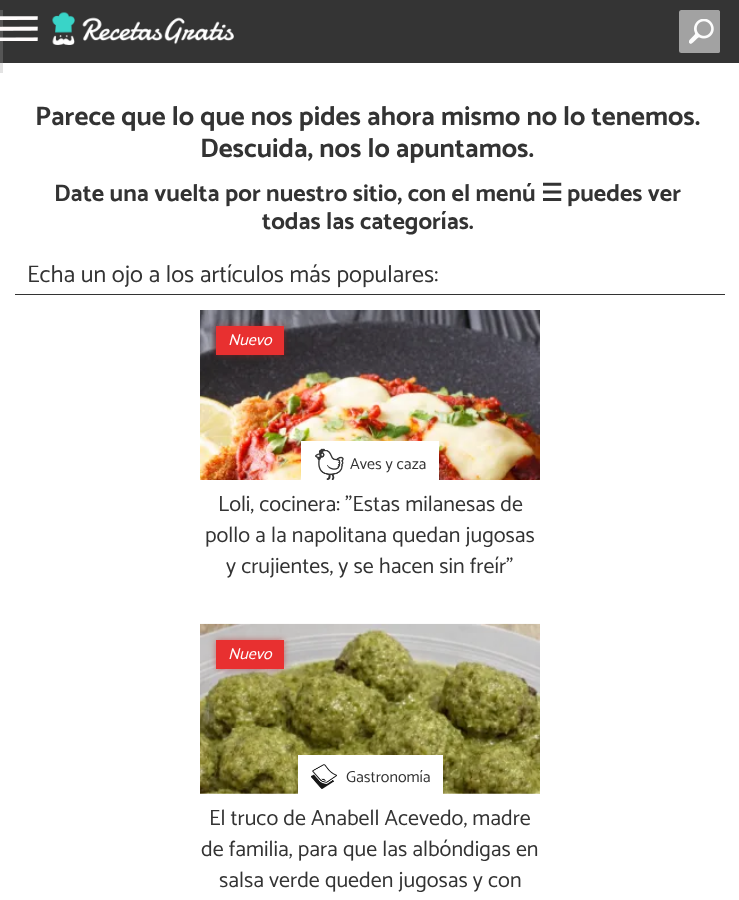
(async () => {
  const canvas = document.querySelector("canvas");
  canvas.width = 739;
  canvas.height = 900;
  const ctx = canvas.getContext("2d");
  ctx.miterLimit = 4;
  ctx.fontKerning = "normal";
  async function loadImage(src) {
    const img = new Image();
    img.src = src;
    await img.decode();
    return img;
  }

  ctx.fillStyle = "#ffffff";
  ctx.fillRect(0, 0, 739, 900);
  for (const [x, y, w, h, color] of [
    [0, 63, 3, 10, "#e3e3e3"],
    [0, 0, 739, 63, "#343434"],
    [0, 10, 3, 53, "#555555"],
  ]) {
    ctx.fillStyle = color;
    ctx.fillRect(x, y, w, h);
  }
  ctx.drawImage(await loadImage("img/1.png"), 0, 16, 38, 25);
  ctx.drawImage(await loadImage("img/2.png"), 52, 12, 182, 33);
  ctx.fillStyle = "#a2a2a2";
  ctx.beginPath();
  ctx.roundRect(679, 10, 41, 43, 2.5);
  ctx.fill();
  ctx.beginPath();
  ctx.roundRect(689, 10, 31, 43, [0, 2.5, 2.5, 0]);
  ctx.fill();
  ctx.drawImage(await loadImage("img/3.png"), 689, 19, 25, 25);
  ctx.fillStyle = "#333333";
  ctx.fillRect(15, 294, 710, 1);
  ctx.drawImage(await loadImage("img/4.png"), 200, 310, 340, 170);
  ctx.fillStyle = "rgba(179, 26, 26, 0.5)";
  ctx.filter = "blur(3px)";
  ctx.beginPath();
  ctx.rect(216, 326, 68, 29);
  ctx.fill();
  ctx.filter = "none";
  ctx.fillStyle = "#e83030";
  ctx.fillRect(216, 326, 68, 29);
  ctx.fillStyle = "#ffffff";
  ctx.fillRect(301, 441, 138, 39);
  ctx.drawImage(await loadImage("img/5.png"), 315, 448, 29, 32);
  ctx.drawImage(await loadImage("img/6.png"), 200, 623, 340, 171);
  ctx.fillStyle = "rgba(179, 26, 26, 0.5)";
  ctx.filter = "blur(3px)";
  ctx.beginPath();
  ctx.rect(216, 640, 68, 29);
  ctx.fill();
  ctx.filter = "none";
  ctx.fillStyle = "#e83030";
  ctx.fillRect(216, 640, 68, 29);
  ctx.fillStyle = "#ffffff";
  ctx.fillRect(298, 755, 145, 39);
  ctx.drawImage(await loadImage("img/7.png"), 311, 764, 26, 25);
  ctx.font = "bold 27px Catamaran";
  ctx.fillStyle = "#333333";
  ctx.fillText("Parece que lo que nos pides ahora mismo no lo tenemos.", 35, 125);
  ctx.fillText("Descuida, nos lo apuntamos.", 200, 157);
  ctx.font = "bold 24px Catamaran";
  ctx.fillText("Date una vuelta por nuestro sitio, con el menú", 54, 201);
  ctx.font = "bold 24px DejaVu Sans";
  ctx.fillText("☰", 541, 201);
  ctx.font = "bold 24px Catamaran";
  ctx.fillText("puedes ver", 567, 201);
  ctx.fillText("todas las categorías.", 262, 229);
  ctx.font = "24px Catamaran";
  ctx.fillText("Echa un ojo a los artículos más populares:", 27, 282);
  ctx.font = "italic 16px Catamaran";
  ctx.fillStyle = "#ffffff";
  ctx.fillText("Nuevo", 228, 345);
  ctx.font = "16px Catamaran";
  ctx.fillStyle = "#333333";
  ctx.fillText("Aves y caza", 350, 469);
  ctx.font = "22px Catamaran";
  for (const [text, x, y] of [
    ["Loli, cocinera: \"Estas milanesas de", 218, 511],
    ["pollo a la napolitana quedan jugosas", 205, 542],
    ["y crujientes, y se hacen sin freír\"", 226, 573],
  ]) {
    ctx.fillText(text, x, y);
  }
  ctx.font = "italic 16px Catamaran";
  ctx.fillStyle = "#ffffff";
  ctx.fillText("Nuevo", 228, 659);
  ctx.font = "16px Catamaran";
  ctx.fillStyle = "#333333";
  ctx.fillText("Gastronomía", 346, 782);
  ctx.font = "22px Catamaran";
  for (const [text, x, y] of [
    ["El truco de Anabell Acevedo, madre", 209, 825],
    ["de familia, para que las albóndigas en", 201, 856],
    ["salsa verde queden jugosas y con", 219, 887],
  ]) {
    ctx.fillText(text, x, y);
  }
})();
